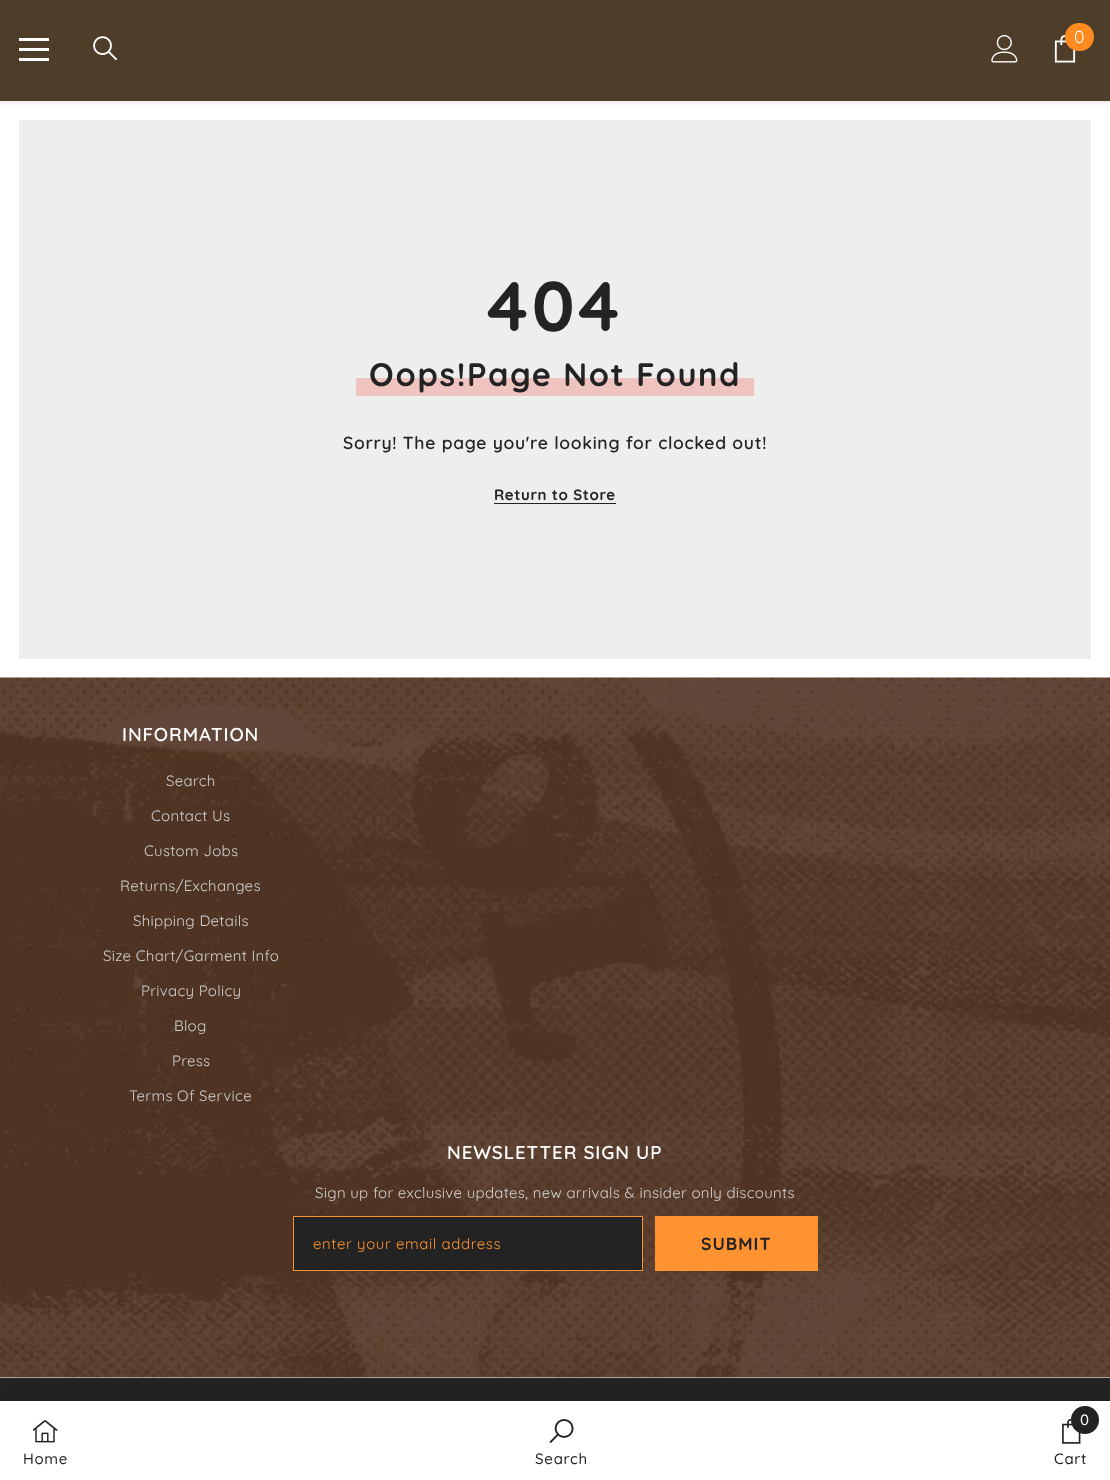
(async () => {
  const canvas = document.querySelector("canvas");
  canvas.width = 1110;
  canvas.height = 1480;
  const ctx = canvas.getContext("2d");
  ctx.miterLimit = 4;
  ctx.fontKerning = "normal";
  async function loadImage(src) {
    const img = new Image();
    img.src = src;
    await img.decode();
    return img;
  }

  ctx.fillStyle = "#ffffff";
  ctx.fillRect(0, 0, 1110, 1480);
  ctx.fillStyle = "rgba(0, 0, 0, 0.1)";
  ctx.filter = "blur(2px)";
  ctx.beginPath();
  ctx.rect(0, -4, 1110, 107);
  ctx.fill();
  ctx.filter = "none";
  for (const [x, y, w, h, color] of [
    [0, 0, 1110, 101, "#4e3e29"],
    [19, 48, 30, 3, "#ffffff"],
    [19, 38, 30, 3, "#ffffff"],
    [19, 58, 30, 3, "#ffffff"],
  ]) {
    ctx.fillStyle = color;
    ctx.fillRect(x, y, w, h);
  }
  ctx.drawImage(await loadImage("img/1.png"), 93, 36, 25, 25);
  ctx.drawImage(await loadImage("img/2.png"), 991, 35, 27, 28);
  ctx.drawImage(await loadImage("img/3.png"), 1054, 35, 22, 28);
  ctx.fillStyle = "#ff8b21";
  ctx.beginPath();
  ctx.roundRect(1065, 23, 29, 28, 14);
  ctx.fill();
  for (const [x, y, w, h, color] of [
    [19, 120, 1072, 539, "#eeeeee"],
    [356, 378, 398, 18, "#efc3c0"],
    [494, 503, 122, 1, "#232323"],
  ]) {
    ctx.fillStyle = color;
    ctx.fillRect(x, y, w, h);
  }
  ctx.drawImage(await loadImage("img/4.png"), 0, 677, 1110, 701);
  ctx.beginPath();
  ctx.rect(293.5, 1216.5, 349, 54);
  ctx.fill();
  ctx.strokeStyle = "#ff9231";
  ctx.stroke();
  for (const [x, y, w, h, color] of [
    [655, 1216, 163, 55, "#ff9231"],
    [0, 1379, 1110, 22, "#232323"],
    [0, 1378, 1110, 1, "#282828"],
  ]) {
    ctx.fillStyle = color;
    ctx.fillRect(x, y, w, h);
  }
  ctx.fillStyle = "rgba(0, 0, 0, 0.12)";
  ctx.filter = "blur(5.5px)";
  ctx.beginPath();
  ctx.rect(0, 1401, 1110, 79);
  ctx.fill();
  ctx.filter = "none";
  ctx.fillStyle = "#ffffff";
  ctx.fillRect(0, 1401, 1110, 79);
  ctx.drawImage(await loadImage("img/5.png"), 33, 1420, 25, 23);
  ctx.drawImage(await loadImage("img/6.png"), 549, 1419, 25, 25);
  ctx.drawImage(await loadImage("img/7.png"), 1062, 1419, 19, 25);
  ctx.fillStyle = "#232323";
  ctx.beginPath();
  ctx.arc(1085, 1420, 14, 0, Math.PI * 2);
  ctx.fill();
  ctx.font = "17.5px Quicksand";
  ctx.fillStyle = "#ffffff";
  ctx.fillText("0", 1074, 43);
  ctx.letterSpacing = "3.5px";
  ctx.font = "bold 70px Quicksand";
  ctx.fillStyle = "#232323";
  ctx.fillText("404", 487, 331);
  ctx.letterSpacing = "1.6px";
  ctx.font = "bold 32.5px Quicksand";
  ctx.fillText("Oops!Page Not Found", 369, 386);
  ctx.letterSpacing = "0.7px";
  ctx.font = "600 17.5px Quicksand";
  ctx.fillText("Sorry! The page you're looking for clocked out!", 343, 449);
  ctx.letterSpacing = "0.6px";
  ctx.font = "bold 15px Quicksand";
  ctx.fillText("Return to Store", 494, 500);
  ctx.letterSpacing = "0.9px";
  ctx.font = "600 18.75px Quicksand";
  ctx.fillStyle = "#ffffff";
  ctx.fillText("INFORMATION", 122, 741);
  ctx.letterSpacing = "0.3px";
  ctx.font = "15px Quicksand";
  ctx.fillStyle = "#cfcfcf";
  for (const [text, x, y] of [
    ["Search", 166, 786],
    ["Contact Us", 151, 821],
    ["Custom Jobs", 144, 856],
    ["Returns/Exchanges", 120, 891],
    ["Shipping Details", 133, 926],
    ["Size Chart/Garment Info", 103, 961],
    ["Privacy Policy", 141, 996],
    ["Blog", 174, 1031],
    ["Press", 172, 1066],
    ["Terms Of Service", 129, 1101],
  ]) {
    ctx.fillText(text, x, y);
  }
  ctx.letterSpacing = "0.9px";
  ctx.font = "600 18.75px Quicksand";
  ctx.fillStyle = "#ffffff";
  ctx.fillText("NEWSLETTER SIGN UP", 447, 1159);
  ctx.letterSpacing = "0.3px";
  ctx.font = "15px Quicksand";
  ctx.fillStyle = "#cfcfcf";
  ctx.fillText("Sign up for exclusive updates, new arrivals & insider only discounts", 315, 1198);
  ctx.letterSpacing = "0.6px";
  ctx.fillStyle = "#ff9231";
  ctx.fillText("enter your email address", 313, 1249);
  ctx.letterSpacing = "1px";
  ctx.font = "bold 17.5px Quicksand";
  ctx.fillStyle = "#232323";
  ctx.fillText("SUBMIT", 701, 1250);
  ctx.letterSpacing = "0.7px";
  ctx.font = "500 15px Quicksand";
  ctx.fillText("Home", 23, 1464);
  ctx.fillText("Search", 535, 1464);
  ctx.letterSpacing = "0px";
  ctx.fillStyle = "#ffffff";
  ctx.fillText("0", 1080, 1425);
  ctx.letterSpacing = "0.7px";
  ctx.fillStyle = "#232323";
  ctx.fillText("Cart", 1054, 1464);
})();
